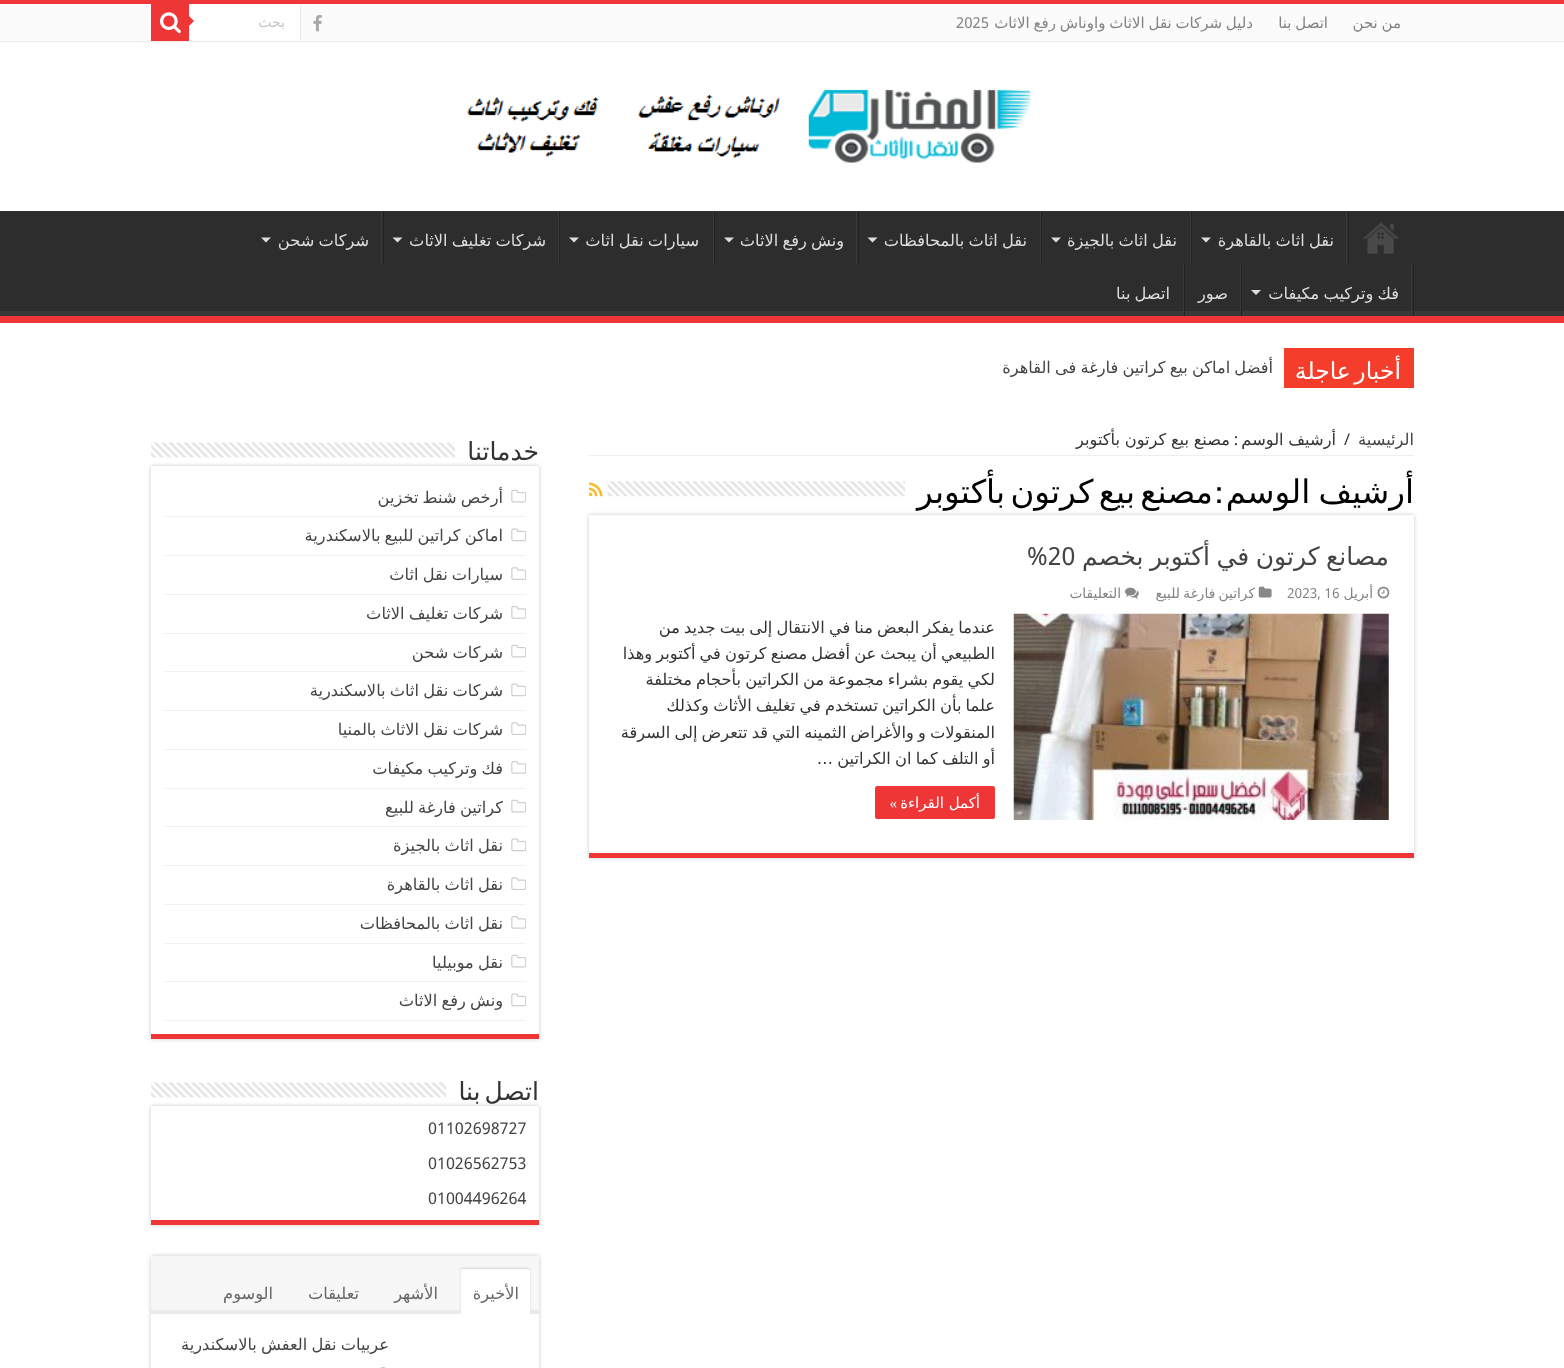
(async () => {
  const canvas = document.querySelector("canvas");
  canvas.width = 1564;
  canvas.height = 1368;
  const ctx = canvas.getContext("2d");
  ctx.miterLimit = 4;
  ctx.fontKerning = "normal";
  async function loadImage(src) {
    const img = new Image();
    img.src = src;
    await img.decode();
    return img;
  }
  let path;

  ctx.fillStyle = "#ffffff";
  ctx.fillRect(0, 0, 1564, 1368);
  for (const [x, y, w, h, color] of [
    [0, 0, 1564, 4, "#ef3636"],
    [0, 4, 1564, 39, "#fbfbfb"],
    [0, 41, 1564, 1, "#ececec"],
  ]) {
    ctx.fillStyle = color;
    ctx.fillRect(x, y, w, h);
  }
  ctx.drawImage(await loadImage("img/1.png"), 313, 15, 9, 17);
  for (const [x, y, w, h, color] of [
    [189, 4, 111, 36, "#ffffff"],
    [300, 4, 1, 36, "#ececec"],
    [151, 4, 38, 37, "#ef3636"],
  ]) {
    ctx.fillStyle = color;
    ctx.fillRect(x, y, w, h);
  }
  ctx.drawImage(await loadImage("img/2.png"), 160, 12, 21, 22);
  path = new Path2D("M189 26V16L194 21Z");
  ctx.fill(path);
  ctx.drawImage(await loadImage("img/3.png"), 467, 89, 564, 74);
  ctx.fillStyle = "#2d2d2d";
  ctx.fillRect(0, 211, 1564, 100);
  ctx.save();
  ctx.beginPath();
  ctx.rect(0, 211, 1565, 105);
  ctx.clip();
  ctx.fillStyle = "#393939";
  path = new Path2D("M-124 88H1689V440H-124ZM-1 204H1564L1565 205V310C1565 311 1564 311 1564 311H-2V310V205C-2 204-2 204-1 204Z");
  ctx.fill(path, "evenodd");
  ctx.restore();
  ctx.fillStyle = "#ef3636";
  ctx.fillRect(0, 316, 1564, 7);
  ctx.drawImage(await loadImage("img/4.png"), 1362, 222, 37, 32);
  ctx.fillStyle = "#222222";
  ctx.fillRect(1348, 211, 1, 53);
  ctx.fillStyle = "#383838";
  ctx.fillRect(1346, 211, 1, 53);
  ctx.fillStyle = "#dddddd";
  path = new Path2D("M1201 237.5H1211L1206 242.5Z");
  ctx.fill(path);
  ctx.fillStyle = "#222222";
  ctx.fillRect(1191, 211, 1, 53);
  ctx.fillStyle = "#383838";
  ctx.fillRect(1190, 211, 1, 53);
  ctx.fillStyle = "#dddddd";
  path = new Path2D("M1051 237.5H1061L1056 242.5Z");
  ctx.fill(path);
  ctx.fillStyle = "#222222";
  ctx.fillRect(1041, 211, 1, 53);
  ctx.fillStyle = "#383838";
  ctx.fillRect(1040, 211, 1, 53);
  ctx.fillStyle = "#dddddd";
  path = new Path2D("M867.5 237.5H877.5L872.5 242.5Z");
  ctx.fill(path);
  ctx.fillStyle = "#222222";
  ctx.fillRect(858, 211, 1, 53);
  ctx.fillStyle = "#383838";
  ctx.fillRect(856, 211, 1, 53);
  ctx.fillStyle = "#dddddd";
  path = new Path2D("M724 237.5H734L729 242.5Z");
  ctx.fill(path);
  ctx.fillStyle = "#222222";
  ctx.fillRect(714, 211, 1, 53);
  ctx.fillStyle = "#383838";
  ctx.fillRect(713, 211, 1, 53);
  ctx.fillStyle = "#dddddd";
  path = new Path2D("M569 237.5H579L574 242.5Z");
  ctx.fill(path);
  ctx.fillStyle = "#222222";
  ctx.fillRect(559, 211, 1, 53);
  ctx.fillStyle = "#383838";
  ctx.fillRect(558, 211, 1, 53);
  ctx.fillStyle = "#dddddd";
  path = new Path2D("M392.5 237.5H402.5L397.5 242.5Z");
  ctx.fill(path);
  ctx.fillStyle = "#222222";
  ctx.fillRect(383, 211, 1, 53);
  ctx.fillStyle = "#383838";
  ctx.fillRect(381, 211, 1, 53);
  ctx.fillStyle = "#dddddd";
  path = new Path2D("M261 237.5H271L266 242.5Z");
  ctx.fill(path);
  ctx.fillStyle = "#222222";
  ctx.fillRect(1413, 264, 1, 52);
  ctx.fillStyle = "#383838";
  ctx.fillRect(1411, 264, 1, 52);
  ctx.fillStyle = "#dddddd";
  path = new Path2D("M1251 290H1261L1256 295Z");
  ctx.fill(path);
  for (const [x, y, w, h, color] of [
    [1241, 264, 1, 52, "#222222"],
    [1240, 264, 1, 52, "#383838"],
    [1184, 264, 1, 52, "#222222"],
    [1183, 264, 1, 52, "#383838"],
  ]) {
    ctx.fillStyle = color;
    ctx.fillRect(x, y, w, h);
  }
  ctx.fillStyle = "#cacaca";
  ctx.filter = "blur(0.5px)";
  ctx.beginPath();
  ctx.rect(151, 348, 1263, 40);
  ctx.fill();
  ctx.filter = "none";
  for (const [x, y, w, h, color] of [
    [151, 348, 1133, 40, "#ffffff"],
    [1284, 348, 130, 40, "#f43d2a"],
    [589, 455, 825, 1, "#eeeeee"],
  ]) {
    ctx.fillStyle = color;
    ctx.fillRect(x, y, w, h);
  }
  ctx.drawImage(await loadImage("img/5.png"), 607, 481, 298, 16);
  ctx.drawImage(await loadImage("img/6.png"), 589, 482, 14, 15);
  ctx.fillStyle = "#cacaca";
  ctx.filter = "blur(2px)";
  ctx.beginPath();
  ctx.rect(589, 515, 825, 343);
  ctx.fill();
  ctx.filter = "none";
  for (const [x, y, w, h, color] of [
    [589, 515, 825, 338, "#ffffff"],
    [589, 853, 825, 5, "#ef3636"],
    [589, 851, 825, 1, "#f2f2f2"],
  ]) {
    ctx.fillStyle = color;
    ctx.fillRect(x, y, w, h);
  }
  ctx.drawImage(await loadImage("img/7.png"), 1377, 586, 13, 13);
  ctx.drawImage(await loadImage("img/8.png"), 1258, 586, 14, 12);
  ctx.drawImage(await loadImage("img/9.png"), 1125, 587, 14, 12);
  ctx.drawImage(await loadImage("img/10.png"), 1013, 613, 376, 207);
  ctx.fillStyle = "#ef3636";
  ctx.beginPath();
  ctx.roundRect(875, 786, 120, 33, 2.5);
  ctx.fill();
  ctx.drawImage(await loadImage("img/11.png"), 151, 442, 304, 16);
  ctx.fillStyle = "#cacaca";
  ctx.filter = "blur(2px)";
  ctx.beginPath();
  ctx.rect(151, 466, 388, 573);
  ctx.fill();
  ctx.filter = "none";
  for (const [x, y, w, h, color] of [
    [151, 466, 388, 568, "#ffffff"],
    [151, 1034, 388, 5, "#ef3636"],
    [164, 516, 362, 1, "#f2f2f2"],
  ]) {
    ctx.fillStyle = color;
    ctx.fillRect(x, y, w, h);
  }
  ctx.drawImage(await loadImage("img/12.png"), 511, 489, 15, 14);
  ctx.fillRect(164, 555, 362, 1);
  ctx.drawImage(await loadImage("img/13.png"), 511, 528, 15, 14);
  ctx.fillRect(164, 594, 362, 1);
  ctx.drawImage(await loadImage("img/14.png"), 511, 567, 15, 13);
  ctx.fillRect(164, 633, 362, 1);
  ctx.drawImage(await loadImage("img/15.png"), 511, 606, 15, 13);
  ctx.fillRect(164, 671, 362, 1);
  ctx.drawImage(await loadImage("img/12.png"), 511, 644, 15, 14);
  ctx.fillRect(164, 710, 362, 1);
  ctx.drawImage(await loadImage("img/13.png"), 511, 683, 15, 14);
  ctx.fillRect(164, 749, 362, 1);
  ctx.drawImage(await loadImage("img/14.png"), 511, 722, 15, 13);
  ctx.fillRect(164, 788, 362, 1);
  ctx.drawImage(await loadImage("img/15.png"), 511, 761, 15, 13);
  ctx.fillRect(164, 826, 362, 1);
  ctx.drawImage(await loadImage("img/12.png"), 511, 799, 15, 14);
  ctx.fillRect(164, 865, 362, 1);
  ctx.drawImage(await loadImage("img/13.png"), 511, 838, 15, 14);
  ctx.fillRect(164, 904, 362, 1);
  ctx.drawImage(await loadImage("img/14.png"), 511, 877, 15, 13);
  ctx.fillRect(164, 943, 362, 1);
  ctx.drawImage(await loadImage("img/15.png"), 511, 916, 15, 13);
  ctx.fillRect(164, 981, 362, 1);
  ctx.drawImage(await loadImage("img/12.png"), 511, 954, 15, 14);
  ctx.fillRect(164, 1020, 362, 1);
  ctx.drawImage(await loadImage("img/13.png"), 511, 993, 15, 14);
  ctx.drawImage(await loadImage("img/16.png"), 151, 1082, 296, 16);
  ctx.fillStyle = "#cacaca";
  ctx.filter = "blur(2px)";
  ctx.beginPath();
  ctx.rect(151, 1106, 388, 119);
  ctx.fill();
  ctx.filter = "none";
  ctx.fillStyle = "#ffffff";
  ctx.fillRect(151, 1106, 388, 114);
  ctx.fillStyle = "#ef3636";
  ctx.fillRect(151, 1220, 388, 5);
  ctx.fillStyle = "#cacaca";
  ctx.filter = "blur(2px)";
  ctx.beginPath();
  ctx.rect(151, 1256, 388, 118);
  ctx.fill();
  ctx.filter = "none";
  for (const [x, y, w, h, color] of [
    [151, 1314, 388, 54, "#ffffff"],
    [151, 1256, 388, 54, "#f7f7f7"],
    [151, 1310, 388, 4, "#eaeaea"],
  ]) {
    ctx.fillStyle = color;
    ctx.fillRect(x, y, w, h);
  }
  ctx.fillStyle = "#d4d4d4";
  ctx.filter = "blur(1px)";
  ctx.beginPath();
  ctx.roundRect(461, 1268, 69, 45, 2.5);
  ctx.fill();
  ctx.filter = "none";
  ctx.fillStyle = "#ffffff";
  ctx.beginPath();
  ctx.roundRect(461, 1269, 69, 45, [2.5, 2.5, 0, 0]);
  ctx.fill();
  ctx.drawImage(await loadImage("img/17.png"), 380, 1367, 6, 1);
  ctx.wordSpacing = "-1px";
  ctx.direction = "rtl";
  ctx.font = "15px DejaVu Sans";
  ctx.fillStyle = "#838383";
  for (const [text, x, y] of [
    ["من نحن", 1401, 28],
    ["اتصل بنا", 1328, 28],
    ["دليل شركات نقل الاثاث واوناش رفع الاثاث", 1253, 28],
  ]) {
    ctx.fillText(text, x, y);
  }
  ctx.wordSpacing = "0px";
  ctx.direction = "ltr";
  ctx.font = "15px Droid Sans";
  ctx.fillText("2025", 956, 28);
  ctx.direction = "rtl";
  ctx.font = "14px DejaVu Sans";
  ctx.fillStyle = "#c5c5c5";
  ctx.fillText("بحث", 285, 27);
  ctx.wordSpacing = "-1px";
  ctx.font = "16.25px DejaVu Sans";
  ctx.fillStyle = "#dddddd";
  for (const [text, x, y] of [
    ["نقل اثاث بالقاهرة", 1334, 246],
    ["نقل اثاث بالجيزة", 1177, 246],
    ["نقل اثاث بالمحافظات", 1027, 246],
    ["ونش رفع الاثاث", 844, 246],
    ["سيارات نقل اثاث", 699, 246],
    ["شركات تغليف الاثاث", 546, 246],
    ["شركات شحن", 369, 246],
    ["فك وتركيب مكيفات", 1399, 299],
  ]) {
    ctx.fillText(text, x, y);
  }
  ctx.wordSpacing = "0px";
  ctx.fillText("صور", 1228, 299);
  ctx.wordSpacing = "-1px";
  ctx.fillText("اتصل بنا", 1170, 299);
  ctx.wordSpacing = "-4px";
  ctx.font = "23.5px DejaVu Sans";
  ctx.fillStyle = "#ffffff";
  ctx.fillText("أخبار عاجلة", 1401, 379);
  ctx.wordSpacing = "-1px";
  ctx.font = "16.25px DejaVu Sans";
  ctx.fillStyle = "#444444";
  ctx.fillText("أفضل اماكن بيع كراتين فارغة فى القاهرة", 1273, 373);
  ctx.wordSpacing = "0px";
  ctx.fillText("الرئيسية", 1414, 445);
  ctx.direction = "ltr";
  ctx.font = "16.25px Droid Sans";
  ctx.fillStyle = "#333333";
  ctx.fillText("/", 1344, 445);
  ctx.wordSpacing = "-0.5px";
  ctx.direction = "rtl";
  ctx.font = "16.25px DejaVu Sans";
  ctx.fillText("أرشيف الوسم", 1336, 445);
  ctx.wordSpacing = "0px";
  ctx.font = "16.25px Droid Sans";
  ctx.fillText(":", 1238, 445);
  ctx.wordSpacing = "-0.5px";
  ctx.font = "16.25px DejaVu Sans";
  ctx.fillText("مصنع بيع كرتون بأكتوبر", 1230, 445);
  ctx.wordSpacing = "-2px";
  ctx.font = "32.5px DejaVu Sans";
  ctx.fillStyle = "#000000";
  ctx.fillText("أرشيف الوسم", 1414, 503);
  ctx.wordSpacing = "0px";
  ctx.font = "bold 32.5px Bebas Neue";
  ctx.fillText(":", 1222, 503);
  ctx.wordSpacing = "-5px";
  ctx.font = "32.5px DejaVu Sans";
  ctx.fillText("مصنع بيع كرتون بأكتوبر", 1213, 503);
  ctx.wordSpacing = "-1.5px";
  ctx.font = "25px DejaVu Sans";
  ctx.fillStyle = "#444444";
  ctx.fillText("مصانع كرتون في أكتوبر بخصم", 1389, 565);
  ctx.wordSpacing = "0px";
  ctx.direction = "ltr";
  ctx.font = "25px Droid Sans";
  ctx.fillText("%20", 1027, 565);
  ctx.direction = "rtl";
  ctx.font = "13.75px DejaVu Sans";
  ctx.fillStyle = "#838383";
  ctx.fillText("أبريل", 1373, 598);
  ctx.direction = "ltr";
  ctx.font = "13.75px Droid Sans";
  ctx.fillText("2023, 16", 1287, 598);
  ctx.wordSpacing = "-1px";
  ctx.direction = "rtl";
  ctx.font = "13.75px DejaVu Sans";
  ctx.fillText("كراتين فارغة للبيع", 1255, 598);
  ctx.wordSpacing = "0px";
  ctx.fillText("التعليقات", 1121, 598);
  ctx.wordSpacing = "-1px";
  ctx.font = "16.25px DejaVu Sans";
  ctx.fillStyle = "#333333";
  for (const [text, x, y] of [
    ["عندما يفكر البعض منا في الانتقال إلى بيت جديد من", 995, 633],
    ["الطبيعي أن يبحث عن أفضل مصنع كرتون في أكتوبر وهذا", 995, 659],
    ["لكي يقوم بشراء مجموعة من الكراتين بأحجام مختلفة", 995, 685],
    ["علما بأن الكراتين تستخدم في تغليف الأثاث وكذلك", 995, 711],
    ["المنقولات و والأغراض الثمينه التي قد تتعرض إلى السرقة", 995, 738],
    ["أو التلف كما ان الكراتين …", 995, 764],
  ]) {
    ctx.fillText(text, x, y);
  }
  ctx.wordSpacing = "0px";
  ctx.font = "15px DejaVu Sans";
  ctx.fillStyle = "#ffffff";
  ctx.fillText("أكمل القراءة", 980, 808);
  ctx.font = "15px Liberation Serif";
  ctx.fillText("»", 897, 808);
  ctx.font = "25px DejaVu Sans";
  ctx.fillStyle = "#333333";
  ctx.fillText("خدماتنا", 539, 460);
  ctx.wordSpacing = "-1px";
  ctx.font = "16.25px DejaVu Sans";
  ctx.fillStyle = "#444444";
  for (const [text, x, y] of [
    ["أرخص شنط تخزين", 503, 503],
    ["اماكن كراتين للبيع بالاسكندرية", 503, 541],
    ["سيارات نقل اثاث", 503, 580],
    ["شركات تغليف الاثاث", 503, 619],
    ["شركات شحن", 503, 658],
    ["شركات نقل اثاث بالاسكندرية", 503, 696],
    ["شركات نقل الاثاث بالمنيا", 503, 735],
    ["فك وتركيب مكيفات", 503, 774],
    ["كراتين فارغة للبيع", 503, 813],
    ["نقل اثاث بالجيزة", 503, 851],
    ["نقل اثاث بالقاهرة", 503, 890],
    ["نقل اثاث بالمحافظات", 503, 929],
    ["نقل موبيليا", 503, 968],
    ["ونش رفع الاثاث", 503, 1006],
  ]) {
    ctx.fillText(text, x, y);
  }
  ctx.wordSpacing = "-4px";
  ctx.font = "25px DejaVu Sans";
  ctx.fillStyle = "#333333";
  ctx.fillText("اتصل بنا", 539, 1100);
  ctx.wordSpacing = "0px";
  ctx.direction = "ltr";
  ctx.font = "16.25px Droid Sans";
  ctx.fillStyle = "#444444";
  for (const [text, x, y] of [
    ["01102698727", 428, 1134],
    ["01026562753", 428, 1169],
    ["01004496264", 428, 1204],
  ]) {
    ctx.fillText(text, x, y);
  }
  ctx.direction = "rtl";
  ctx.font = "16.25px DejaVu Sans";
  ctx.fillStyle = "#666666";
  for (const [text, x, y] of [
    ["الأخيرة", 519, 1299],
    ["الأشهر", 438, 1299],
    ["تعليقات", 359, 1299],
    ["الوسوم", 273, 1299],
  ]) {
    ctx.fillText(text, x, y);
  }
  ctx.wordSpacing = "-1px";
  ctx.fillStyle = "#444444";
  ctx.fillText("عربيات نقل العفش بالاسكندرية", 389, 1350);
})();
